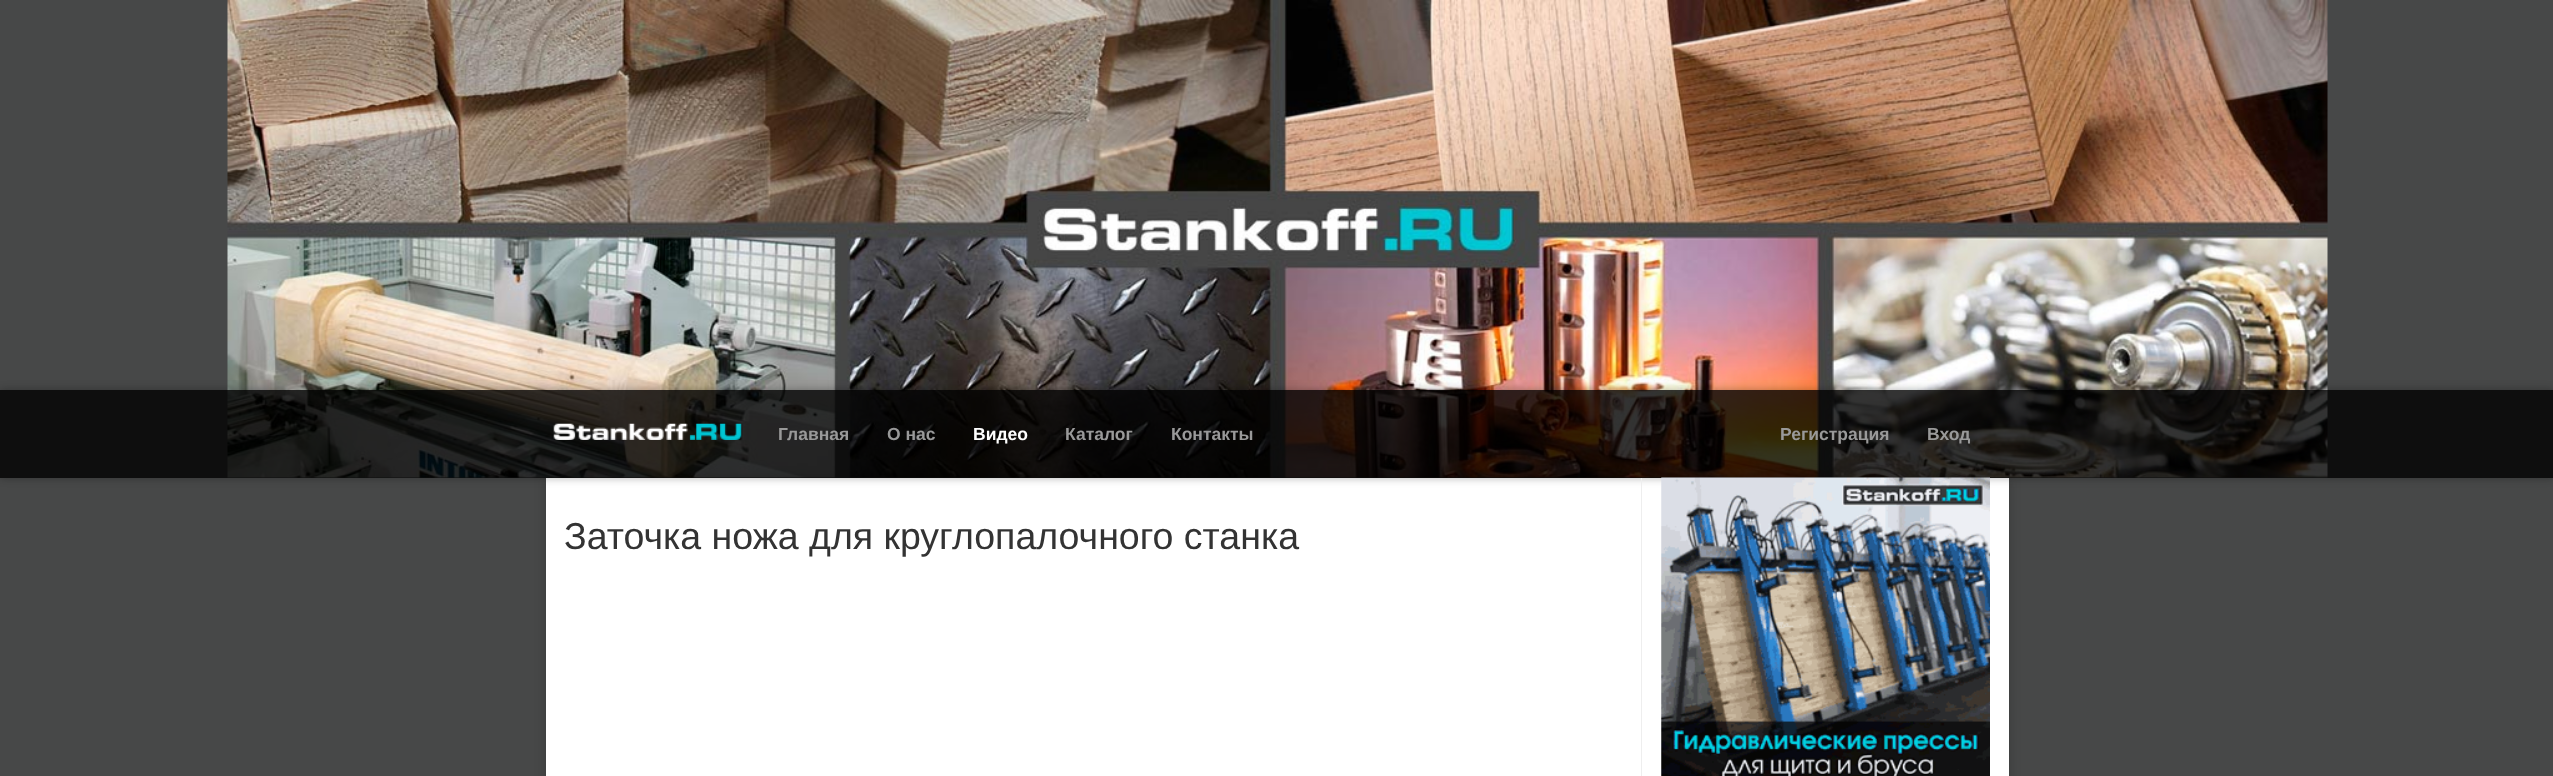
(async () => {
  const canvas = document.querySelector("canvas");
  canvas.width = 2553;
  canvas.height = 776;
  const ctx = canvas.getContext("2d");
  ctx.miterLimit = 4;
  ctx.fontKerning = "normal";
  async function loadImage(src) {
    const img = new Image();
    img.src = src;
    await img.decode();
    return img;
  }
  let path;

  ctx.fillStyle = "#474848";
  ctx.fillRect(0, 0, 2553, 776);
  ctx.drawImage(await loadImage("img/1.png"), 227, 0, 2101, 478);
  ctx.fillStyle = "rgba(0, 0, 0, 0.2)";
  ctx.filter = "blur(6px)";
  ctx.beginPath();
  ctx.rect(546, 478, 1463, 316);
  ctx.fill();
  ctx.filter = "none";
  ctx.fillStyle = "#ffffff";
  ctx.fillRect(546, 478, 1463, 298);
  ctx.save();
  path = new Path2D("M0 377H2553V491H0ZM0 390H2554V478H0Z");
  ctx.clip(path, "evenodd");
  ctx.fillStyle = "rgba(0, 0, 0, 0.3)";
  ctx.filter = "blur(4px)";
  ctx.beginPath();
  ctx.rect(0, 390, 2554, 88);
  ctx.fill();
  ctx.filter = "none";
  ctx.restore();
  ctx.fillStyle = "rgba(0, 0, 0, 0.8)";
  ctx.fillRect(0, 390, 2553, 88);
  ctx.drawImage(await loadImage("img/2.png"), 553, 423, 189, 17);
  ctx.fillStyle = "#eeeeee";
  ctx.fillRect(1641, 478, 1, 298);
  ctx.drawImage(await loadImage("img/3.png"), 1661, 477, 329, 299);
  ctx.font = "bold 17.5px Liberation Sans";
  ctx.fillStyle = "#999999";
  ctx.fillText("Главная", 778, 440);
  ctx.fillText("О нас", 887, 440);
  ctx.fillStyle = "#ffffff";
  ctx.fillText("Видео", 973, 440);
  ctx.fillStyle = "#999999";
  for (const [text, x, y] of [
    ["Каталог", 1065, 440],
    ["Контакты", 1171, 440],
    ["Регистрация", 1780, 440],
    ["Вход", 1927, 440],
  ]) {
    ctx.fillText(text, x, y);
  }
  ctx.font = "37.5px Liberation Sans";
  ctx.fillStyle = "#333333";
  ctx.fillText("Заточка ножа для круглопалочного станка", 564, 549);
})();
